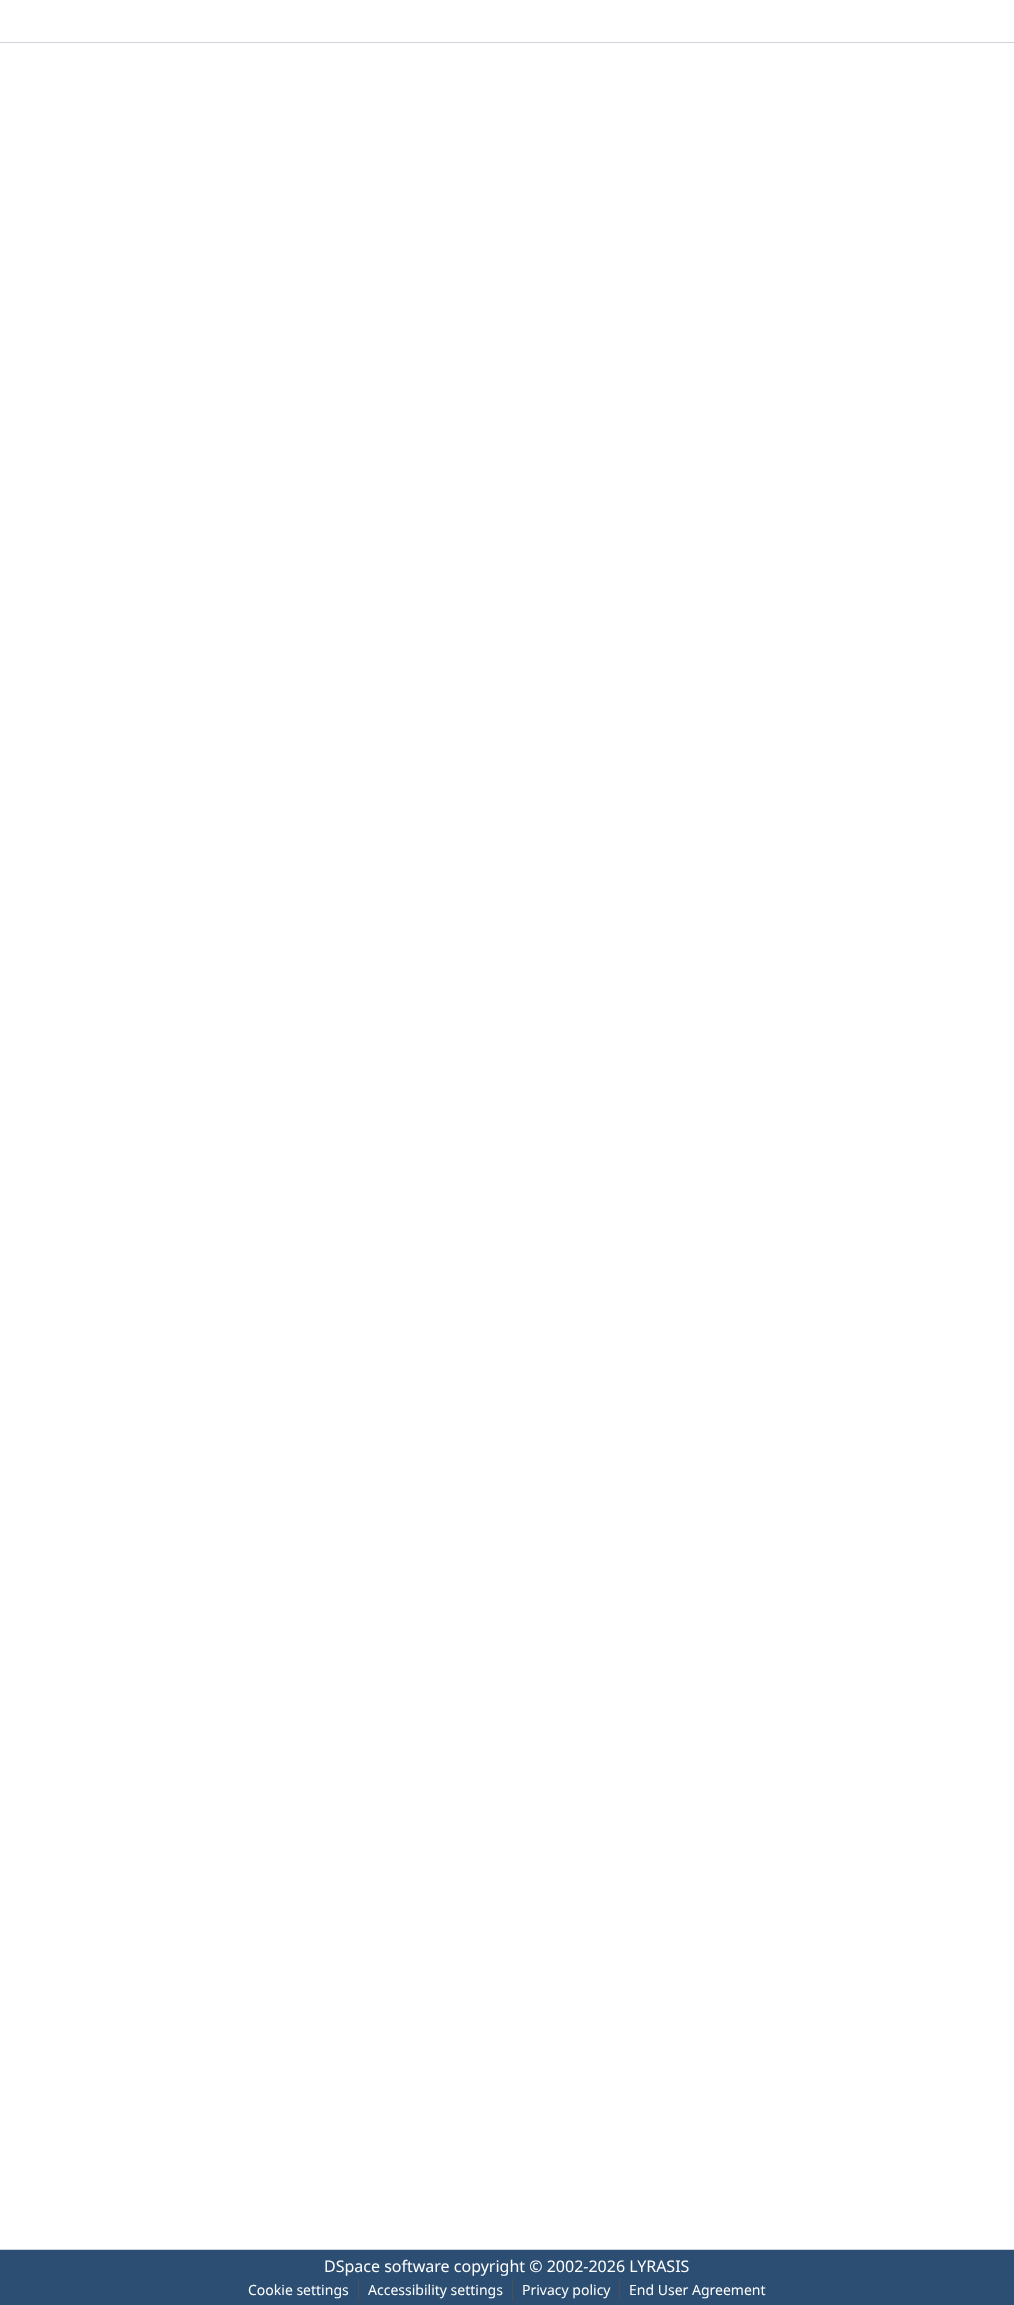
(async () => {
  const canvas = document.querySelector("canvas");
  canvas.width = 1014;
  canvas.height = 2305;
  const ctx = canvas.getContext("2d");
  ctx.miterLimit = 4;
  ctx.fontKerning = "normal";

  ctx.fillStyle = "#ffffff";
  ctx.fillRect(0, 0, 1014, 2305);
  for (const [x, y, w, h, color] of [
    [0, 42, 1014, 1, "#ced4da"],
    [0, 2250, 1014, 55, "#2b4e72"],
    [0, 2249, 1014, 1, "#ced4da"],
    [358, 2278, 1, 23, "#495057"],
    [512, 2278, 1, 23, "#495057"],
    [619, 2278, 1, 23, "#495057"],
  ]) {
    ctx.fillStyle = color;
    ctx.fillRect(x, y, w, h);
  }
  ctx.font = "16px Noto Sans";
  ctx.fillStyle = "#ffffff";
  ctx.fillText("DSpace software copyright © 2002-2026 LYRASIS", 324, 2272);
  ctx.font = "14px Noto Sans";
  for (const [text, x, y] of [
    ["Cookie settings", 248, 2295],
    ["Accessibility settings", 368, 2295],
    ["Privacy policy", 522, 2295],
    ["End User Agreement", 629, 2295],
  ]) {
    ctx.fillText(text, x, y);
  }
})();
